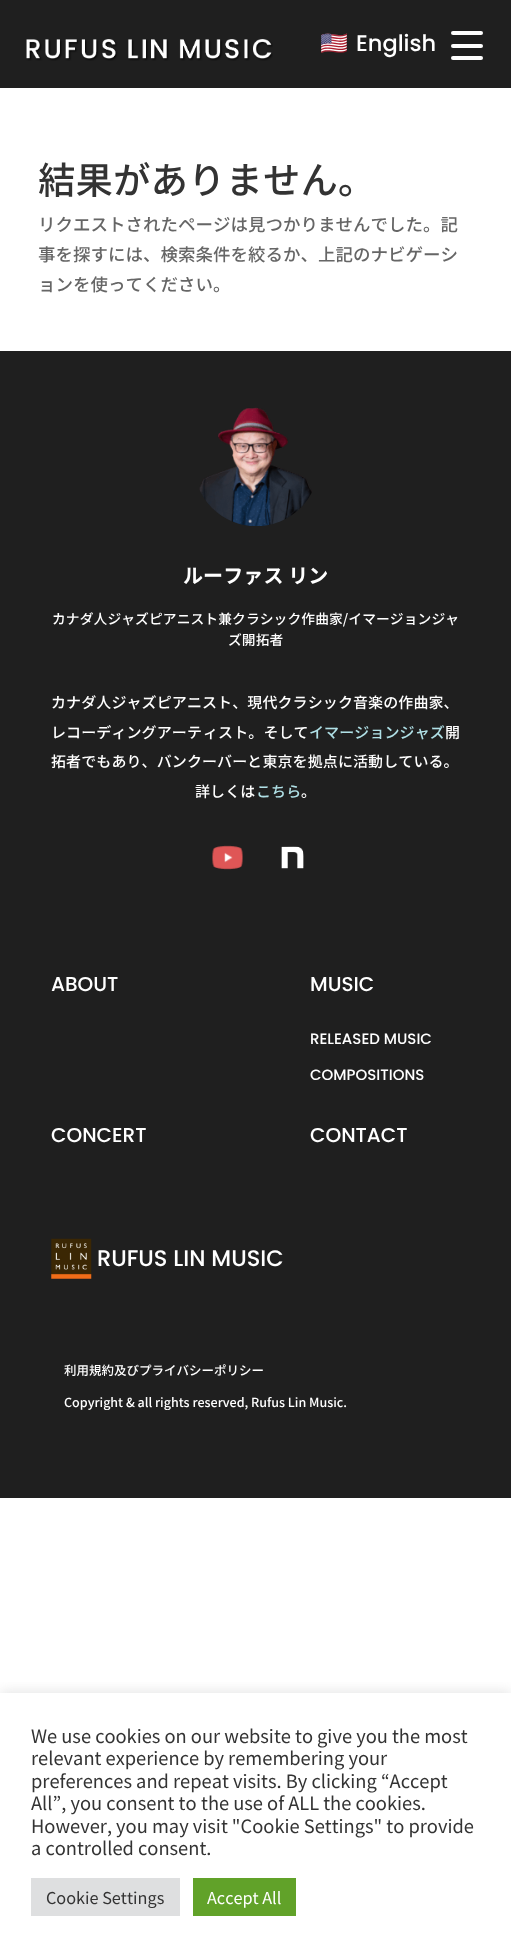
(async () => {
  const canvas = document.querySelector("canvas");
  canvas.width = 511;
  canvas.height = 1953;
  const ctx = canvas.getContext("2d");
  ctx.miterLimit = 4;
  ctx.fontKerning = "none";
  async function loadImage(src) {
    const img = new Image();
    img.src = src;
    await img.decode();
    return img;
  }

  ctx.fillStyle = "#ffffff";
  ctx.fillRect(0, 0, 511, 1953);
  ctx.fillStyle = "#1f1f1f";
  ctx.fillRect(0, 0, 511, 88);
  ctx.drawImage(await loadImage("img/1.png"), 26, 39, 247, 22);
  ctx.fillStyle = "#ffffff";
  ctx.beginPath();
  ctx.roundRect(451, 44, 32, 4, 2);
  ctx.fill();
  ctx.beginPath();
  ctx.roundRect(451, 31, 32, 4, 2);
  ctx.fill();
  ctx.beginPath();
  ctx.roundRect(451, 56, 32, 4, 2);
  ctx.fill();
  ctx.fillStyle = "#1f1f1f";
  ctx.fillRect(0, 351, 511, 1147);
  ctx.drawImage(await loadImage("img/2.png"), 199, 407, 113, 119);
  ctx.drawImage(await loadImage("img/3.png"), 212, 845, 31, 25);
  ctx.drawImage(await loadImage("img/4.png"), 281, 846, 23, 23);
  ctx.drawImage(await loadImage("img/5.png"), 51, 1238, 41, 41);
  ctx.save();
  ctx.beginPath();
  ctx.rect(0, 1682, 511, 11);
  ctx.clip();
  ctx.fillStyle = "rgba(172, 171, 171, 0.3)";
  ctx.filter = "blur(6px)";
  ctx.beginPath();
  ctx.rect(0, 1691, 511, 262);
  ctx.fill();
  ctx.filter = "none";
  ctx.restore();
  ctx.fillStyle = "#dedfe0";
  ctx.fillRect(31, 1878, 149, 38);
  ctx.fillStyle = "#61a229";
  ctx.fillRect(193, 1878, 103, 38);
  ctx.font = "22.5px Noto Color Emoji";
  ctx.fillStyle = "#666666";
  ctx.fillText("🇺🇸", 320, 51);
  ctx.font = "500 22.5px Poppins";
  ctx.fillStyle = "#ffffff";
  ctx.fillText("English", 356, 51);
  ctx.font = "500 37.5px Noto Sans JP";
  ctx.fillStyle = "#333333";
  ctx.fillText("結果がありません。", 38, 194);
  ctx.font = "500 17.5px Noto Sans JP";
  ctx.fillStyle = "#666666";
  for (const [text, x, y] of [
    ["リクエストされたページは見つかりませんでした。記", 38, 231],
    ["事を探すには、検索条件を絞るか、上記のナビゲーシ", 38, 261],
    ["ョンを使ってください。", 38, 291],
  ]) {
    ctx.fillText(text, x, y);
  }
  ctx.letterSpacing = "0.1px";
  ctx.font = "bold 20px Noto Sans JP";
  ctx.fillStyle = "#ffffff";
  ctx.fillText("ルーファス リン", 183, 583);
  ctx.font = "500 13.75px Noto Sans JP";
  ctx.fillText("カナダ人ジャズピアニスト兼クラシック作曲家/イマージョンジャ", 52, 624);
  ctx.fillText("ズ開拓者", 228, 645);
  ctx.font = "500 15px Noto Sans JP";
  ctx.fillText("カナダ人ジャズピアニスト、現代クラシック音楽の作曲家、", 51, 708);
  ctx.fillText("レコーディングアーテ", 51, 738);
  ctx.fillText("ィスト。そして", 203, 738);
  ctx.fillStyle = "#b0e0e6";
  ctx.fillText("イマージョンジャズ", 309, 738);
  ctx.fillStyle = "#ffffff";
  for (const [text, x, y] of [
    ["開", 445, 738],
    ["拓者でもあり、バンクーバーと東京を拠点に活動している。", 51, 767],
    ["詳しくは", 195, 797],
  ]) {
    ctx.fillText(text, x, y);
  }
  ctx.fillStyle = "#b0e0e6";
  ctx.fillText("こちら", 256, 797);
  ctx.fillStyle = "#ffffff";
  ctx.fillText("。", 301, 797);
  ctx.letterSpacing = "0px";
  ctx.font = "500 20px Poppins";
  ctx.fillText("ABOUT", 51, 991);
  ctx.fillText("MUSIC", 310, 991);
  ctx.font = "500 15px Poppins";
  ctx.fillText("RELEASED MUSIC", 310, 1044);
  ctx.fillText("COMPOSITIONS", 310, 1080);
  ctx.font = "500 20px Poppins";
  ctx.fillText("CONCERT", 51, 1142);
  ctx.fillText("CONTACT", 310, 1142);
  ctx.font = "500 22.5px Poppins";
  ctx.fillText("RUFUS LIN MUSIC", 97, 1266);
  ctx.font = "500 12.5px Noto Sans JP";
  ctx.fillText("利用規約及びプライバシーポリシー", 64, 1375);
  ctx.fillText("Copyright & all rights reserved, Rufus Lin Music.", 64, 1407);
  ctx.font = "18.3px Noto Sans JP";
  ctx.fillStyle = "#333333";
  for (const [text, x, y] of [
    ["We use cookies on our website to give you the most", 31, 1743],
    ["relevant experience by remembering your", 31, 1765],
    ["preferences and repeat visits. By clicking “Accept", 31, 1788],
    ["All”, you consent to", 31, 1810],
    ["the use of ALL the cookies.", 201, 1810],
    ["However, you may visit \"Cookie Settings\" to provide", 31, 1833],
    ["a controlled consent.", 31, 1855],
  ]) {
    ctx.fillText(text, x, y);
  }
  ctx.font = "16.25px Noto Sans JP";
  ctx.fillText("Cookie Settings", 46, 1904);
  ctx.fillStyle = "#ffffff";
  ctx.fillText("Accept All", 207, 1904);
})();
